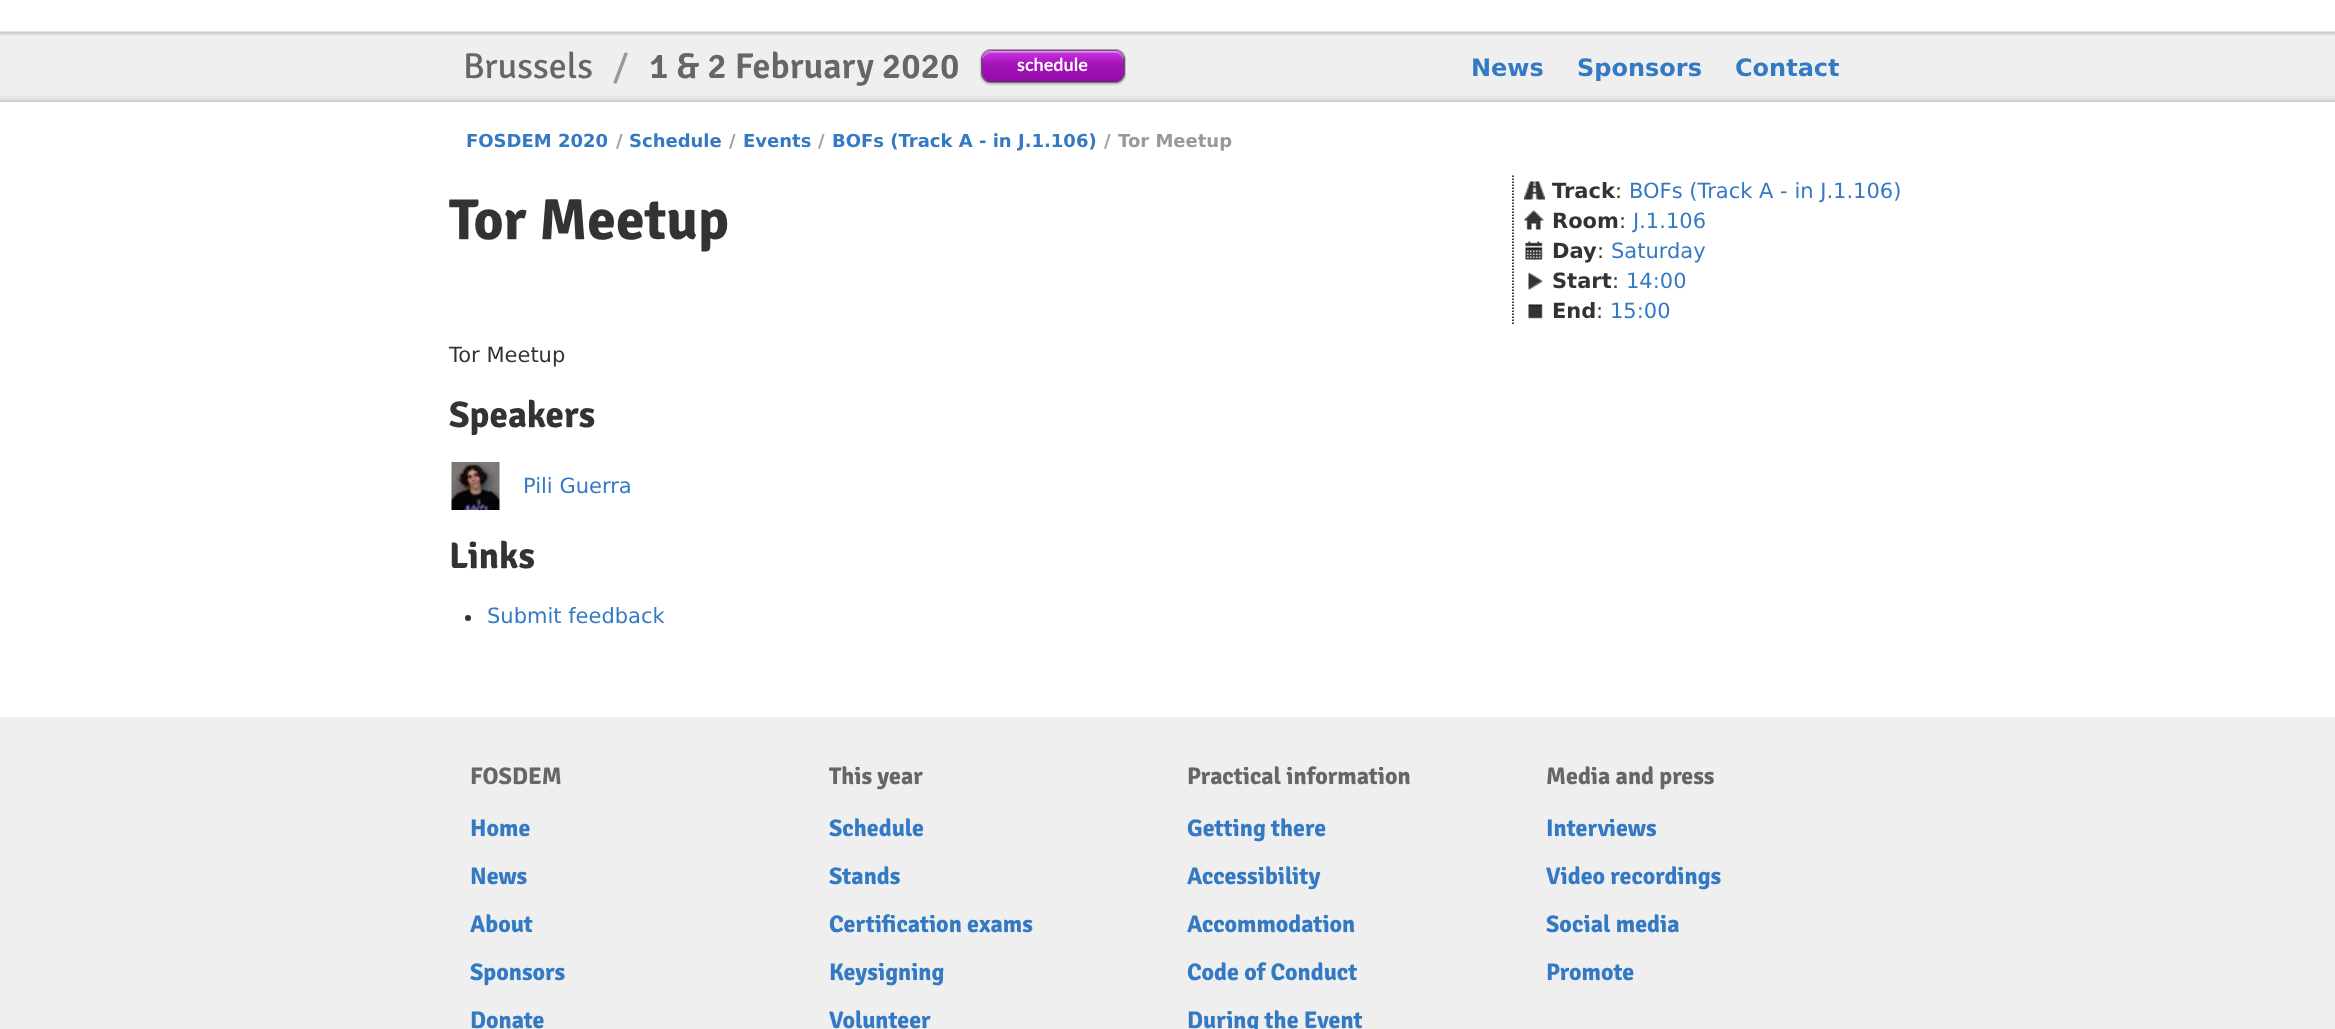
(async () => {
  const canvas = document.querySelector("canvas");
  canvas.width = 2335;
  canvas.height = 1029;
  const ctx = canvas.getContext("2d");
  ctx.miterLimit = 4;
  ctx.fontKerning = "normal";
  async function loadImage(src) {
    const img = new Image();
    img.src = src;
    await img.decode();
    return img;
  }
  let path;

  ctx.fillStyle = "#ffffff";
  ctx.fillRect(0, 0, 2335, 1029);
  ctx.fillStyle = "#efefef";
  ctx.fillRect(0, 36, 2335, 60);
  ctx.drawImage(await loadImage("img/1.png"), 0, 31, 2335, 5);
  ctx.drawImage(await loadImage("img/2.png"), 0, 96, 2335, 6);
  ctx.drawImage(await loadImage("img/3.png"), 979, 49, 147, 37);
  path = new Path2D("M1513 175.5V325.5");
  ctx.strokeStyle = "#000000";
  ctx.lineWidth = 1.5;
  ctx.setLineDash([1.5, 1.5]);
  ctx.stroke(path);
  ctx.drawImage(await loadImage("img/4.png"), 1524, 181, 21, 19);
  ctx.drawImage(await loadImage("img/5.png"), 1524, 210, 20, 20);
  ctx.drawImage(await loadImage("img/6.png"), 1525, 241, 18, 19);
  ctx.drawImage(await loadImage("img/7.png"), 1528, 272, 15, 18);
  ctx.drawImage(await loadImage("img/8.png"), 1528, 304, 15, 15);
  ctx.drawImage(await loadImage("img/9.png"), 451, 462, 49, 48);
  ctx.fillStyle = "#333333";
  ctx.beginPath();
  ctx.arc(468, 618, 3, 0, Math.PI * 2);
  ctx.fill();
  ctx.fillStyle = "#efefef";
  ctx.fillRect(0, 717, 2335, 312);
  ctx.font = "36px Signika";
  ctx.fillStyle = "#666666";
  ctx.fillText("Brussels", 463, 78);
  ctx.fillStyle = "#999999";
  ctx.fillText("/", 613, 78);
  ctx.font = "600 36px Signika";
  ctx.fillStyle = "#666666";
  ctx.fillText("1 & 2 February 2020", 649, 78);
  ctx.font = "bold 18px Lato";
  ctx.fillStyle = "#ffffff";
  ctx.fillText("schedule", 1017, 71);
  ctx.font = "bold 24px DejaVu Sans";
  ctx.fillStyle = "#3479c4";
  for (const [text, x, y] of [
    ["News", 1471, 76],
    ["Sponsors", 1577, 76],
    ["Contact", 1735, 76],
  ]) {
    ctx.fillText(text, x, y);
  }
  ctx.font = "bold 18px DejaVu Sans";
  ctx.fillText("FOSDEM 2020", 466, 147);
  ctx.fillStyle = "#9f9f9f";
  ctx.fillText("/", 616, 147);
  ctx.fillStyle = "#3479c4";
  ctx.fillText("Schedule", 629, 147);
  ctx.fillStyle = "#9f9f9f";
  ctx.fillText("/", 729, 147);
  ctx.fillStyle = "#3479c4";
  ctx.fillText("Events", 743, 147);
  ctx.fillStyle = "#9f9f9f";
  ctx.fillText("/", 818, 147);
  ctx.fillStyle = "#3479c4";
  ctx.fillText("BOFs (Track A - in J.1.106)", 832, 147);
  ctx.fillStyle = "#9f9f9f";
  ctx.fillText("/", 1104, 147);
  ctx.fillStyle = "#999999";
  ctx.fillText("Tor Meetup", 1118, 147);
  ctx.font = "bold 57.75px Signika";
  ctx.fillStyle = "#333333";
  ctx.fillText("Tor Meetup", 449, 239);
  ctx.font = "bold 21px DejaVu Sans";
  ctx.fillText("Track", 1552, 198);
  ctx.font = "21px DejaVu Sans";
  ctx.fillText(":", 1615, 198);
  ctx.fillStyle = "#3479c4";
  ctx.fillText("BOFs (Track A - in J.1.106)", 1629, 198);
  ctx.font = "bold 21px DejaVu Sans";
  ctx.fillStyle = "#333333";
  ctx.fillText("Room", 1552, 228);
  ctx.font = "21px DejaVu Sans";
  ctx.fillText(":", 1619, 228);
  ctx.fillStyle = "#3479c4";
  ctx.fillText("J.1.106", 1633, 228);
  ctx.font = "bold 21px DejaVu Sans";
  ctx.fillStyle = "#333333";
  ctx.fillText("Day", 1552, 258);
  ctx.font = "21px DejaVu Sans";
  ctx.fillText(":", 1597, 258);
  ctx.fillStyle = "#3479c4";
  ctx.fillText("Saturday", 1611, 258);
  ctx.font = "bold 21px DejaVu Sans";
  ctx.fillStyle = "#333333";
  ctx.fillText("Start", 1552, 288);
  ctx.font = "21px DejaVu Sans";
  ctx.fillText(":", 1612, 288);
  ctx.fillStyle = "#3479c4";
  ctx.fillText("14:00", 1626, 288);
  ctx.font = "bold 21px DejaVu Sans";
  ctx.fillStyle = "#333333";
  ctx.fillText("End", 1552, 318);
  ctx.font = "21px DejaVu Sans";
  ctx.fillText(":", 1596, 318);
  ctx.fillStyle = "#3479c4";
  ctx.fillText("15:00", 1610, 318);
  ctx.fillStyle = "#333333";
  ctx.fillText("Tor Meetup", 449, 362);
  ctx.font = "bold 37px Signika";
  ctx.fillText("Speakers", 449, 427);
  ctx.font = "21px DejaVu Sans";
  ctx.fillStyle = "#3479c4";
  ctx.fillText("Pili Guerra", 523, 493);
  ctx.font = "bold 37px Signika";
  ctx.fillStyle = "#333333";
  ctx.fillText("Links", 449, 568);
  ctx.font = "21px DejaVu Sans";
  ctx.fillStyle = "#3479c4";
  ctx.fillText("Submit feedback", 487, 623);
  ctx.font = "bold 24px Signika";
  ctx.fillStyle = "#666666";
  ctx.fillText("FOSDEM", 470, 784);
  ctx.fillStyle = "#3479c4";
  for (const [text, x, y] of [
    ["Home", 470, 836],
    ["News", 470, 884],
    ["About", 470, 932],
    ["Sponsors", 470, 980],
    ["Donate", 470, 1028],
  ]) {
    ctx.fillText(text, x, y);
  }
  ctx.fillStyle = "#666666";
  ctx.fillText("This year", 829, 784);
  ctx.fillStyle = "#3479c4";
  for (const [text, x, y] of [
    ["Schedule", 829, 836],
    ["Stands", 829, 884],
    ["Certification exams", 829, 932],
    ["Keysigning", 829, 980],
    ["Volunteer", 829, 1028],
  ]) {
    ctx.fillText(text, x, y);
  }
  ctx.fillStyle = "#666666";
  ctx.fillText("Practical information", 1187, 784);
  ctx.fillStyle = "#3479c4";
  for (const [text, x, y] of [
    ["Getting there", 1187, 836],
    ["Accessibility", 1187, 884],
    ["Accommodation", 1187, 932],
    ["Code of Conduct", 1187, 980],
    ["During the Event", 1187, 1028],
  ]) {
    ctx.fillText(text, x, y);
  }
  ctx.fillStyle = "#666666";
  ctx.fillText("Media and press", 1546, 784);
  ctx.fillStyle = "#3479c4";
  for (const [text, x, y] of [
    ["Interviews", 1546, 836],
    ["Video recordings", 1546, 884],
    ["Social media", 1546, 932],
    ["Promote", 1546, 980],
  ]) {
    ctx.fillText(text, x, y);
  }
})();
